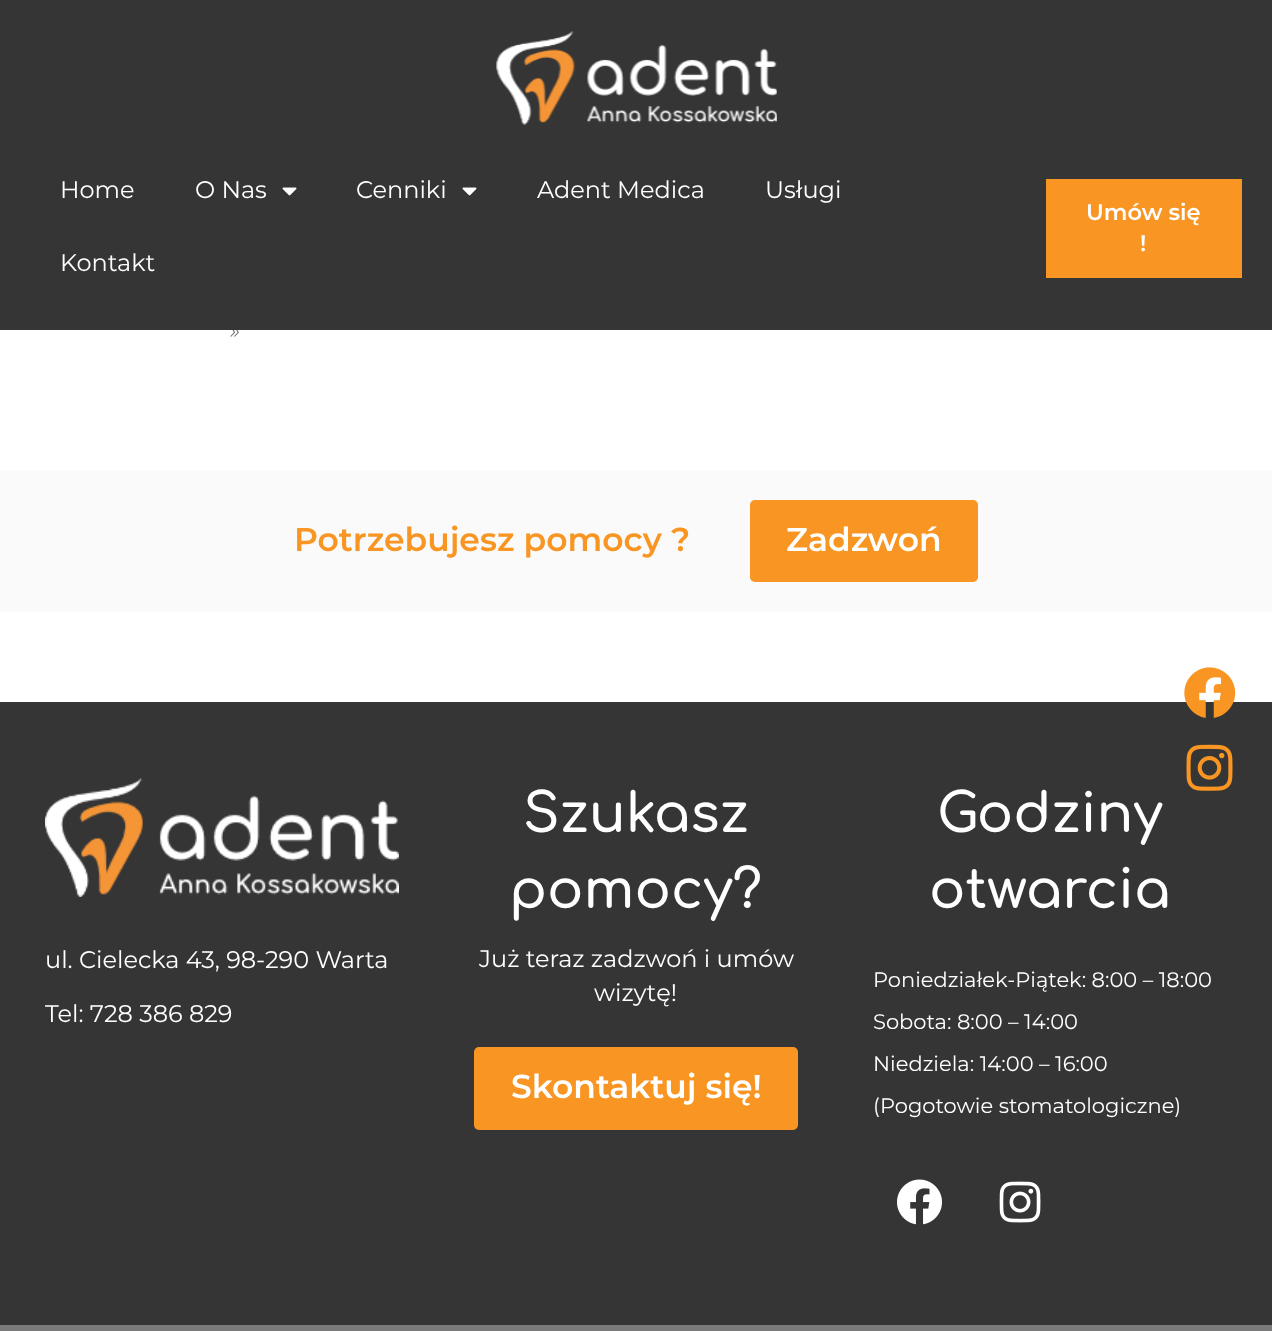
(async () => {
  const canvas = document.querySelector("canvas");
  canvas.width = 1272;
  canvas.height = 1331;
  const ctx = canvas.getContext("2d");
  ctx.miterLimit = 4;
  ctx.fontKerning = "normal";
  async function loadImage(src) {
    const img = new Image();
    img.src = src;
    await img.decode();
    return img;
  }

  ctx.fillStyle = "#ffffff";
  ctx.fillRect(0, 0, 1272, 1331);
  ctx.fillStyle = "#fafafa";
  ctx.fillRect(0, 470, 1272, 142);
  ctx.fillStyle = "#f89523";
  ctx.beginPath();
  ctx.roundRect(750, 500, 228, 82, 5);
  ctx.fill();
  ctx.fillStyle = "#353535";
  ctx.fillRect(0, 702, 1272, 623);
  ctx.drawImage(await loadImage("img/3.png"), 1184, 667, 52, 51);
  ctx.drawImage(await loadImage("img/4.png"), 1186, 744, 47, 47);
  ctx.drawImage(await loadImage("img/5.png"), 45, 778, 354, 119);
  ctx.fillStyle = "#f89523";
  ctx.beginPath();
  ctx.roundRect(474, 1047, 324, 83, 5);
  ctx.fill();
  ctx.drawImage(await loadImage("img/6.png"), 897, 1179, 45, 46);
  ctx.drawImage(await loadImage("img/7.png"), 999, 1181, 42, 42);
  ctx.fillStyle = "#7a7a7a";
  ctx.fillRect(0, 1325, 1272, 6);
  ctx.font = "italic 21px Montserrat";
  ctx.fillText("»", 230, 338);
  ctx.fillStyle = "#353535";
  ctx.fillRect(0, 0, 1272, 330);
  ctx.font = "24px Montserrat";
  ctx.fillStyle = "#ffffff";
  for (const [text, x, y] of [
    ["Kontakt", 60, 271],
    ["Usługi", 765, 198],
    ["Adent Medica", 537, 198],
  ]) {
    ctx.fillText(text, x, y);
  }
  ctx.drawImage(await loadImage("img/2.png"), 462, 187, 15, 9);
  ctx.fillText("Cenniki", 356, 198);
  ctx.drawImage(await loadImage("img/2.png"), 282, 187, 15, 9);
  ctx.fillText("O Nas", 195, 198);
  ctx.fillText("Home", 60, 198);
  ctx.fillStyle = "#f89523";
  ctx.fillRect(1046, 179, 196, 99);
  ctx.font = "600 22.5px Montserrat";
  ctx.fillStyle = "#ffffff";
  ctx.fillText("!", 1140, 251);
  ctx.fillText("Umów się", 1086, 220);
  ctx.drawImage(await loadImage("img/1.png"), 496, 31, 281, 94);
  ctx.font = "600 33px Montserrat";
  ctx.fillStyle = "#f89523";
  ctx.fillText("Potrzebujesz pomocy ?", 294, 551);
  ctx.fillStyle = "#ffffff";
  ctx.fillText("Zadzwoń", 786, 551);
  ctx.font = "24px Montserrat";
  ctx.fillText("ul. Cielecka 43, 98-290 Warta", 45, 968);
  ctx.fillText("Tel: 728 386 829", 45, 1022);
  ctx.font = "600 54px Comfortaa";
  ctx.fillText("Szukasz", 523, 832);
  ctx.fillText("pomocy?", 509, 908);
  ctx.font = "24px Montserrat";
  ctx.fillText("Już teraz zadzwoń i umów", 479, 967);
  ctx.fillText("wizytę!", 594, 1001);
  ctx.font = "600 33px Montserrat";
  ctx.fillText("Skontaktuj się!", 511, 1098);
  ctx.font = "600 54px Comfortaa";
  ctx.fillText("Godziny", 937, 832);
  ctx.fillText("otwarcia", 929, 908);
  ctx.font = "21px Montserrat";
  for (const [text, x, y] of [
    ["Poniedziałek-Piątek: 8:00 – 18:00", 873, 987],
    ["Sobota: 8:00 – 14:00", 873, 1029],
    ["Niedziela: 14:00 – 16:00", 873, 1071],
    ["(Pogotowie stomatologiczne)", 873, 1113],
  ]) {
    ctx.fillText(text, x, y);
  }
})();
